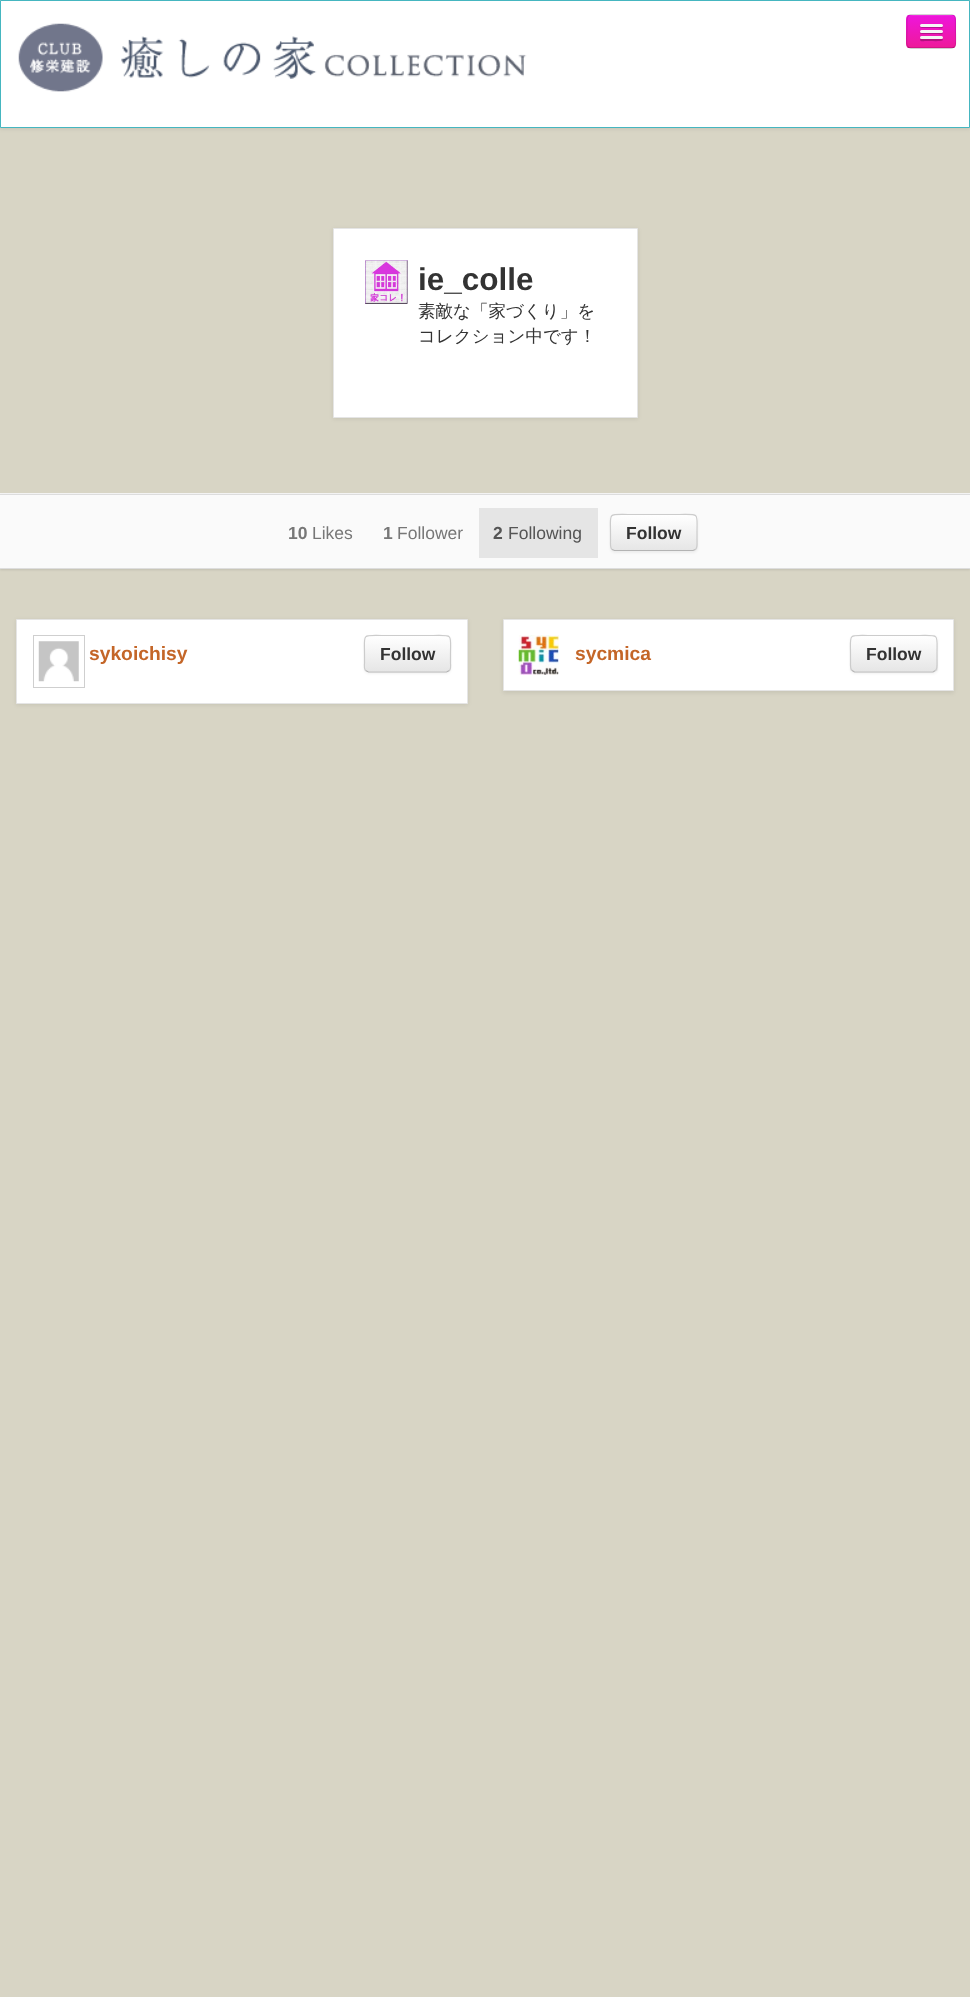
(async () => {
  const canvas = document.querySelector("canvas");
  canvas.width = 970;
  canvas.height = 1997;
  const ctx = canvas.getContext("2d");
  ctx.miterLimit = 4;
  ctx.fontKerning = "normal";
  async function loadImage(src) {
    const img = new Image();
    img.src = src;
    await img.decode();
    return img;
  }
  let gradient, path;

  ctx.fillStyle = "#d8d5c5";
  ctx.fillRect(0, 0, 970, 1997);
  ctx.fillStyle = "rgba(0, 0, 0, 0.08)";
  ctx.filter = "blur(2px)";
  ctx.beginPath();
  ctx.rect(0, 1, 970, 128);
  ctx.fill();
  ctx.filter = "none";
  ctx.fillStyle = "#ffffff";
  ctx.beginPath();
  ctx.rect(0.5, 0.5, 969, 127);
  ctx.fill();
  ctx.strokeStyle = "#45b6c0";
  ctx.stroke();
  ctx.drawImage(await loadImage("img/1.png"), 18, 23, 509, 69);
  ctx.fillStyle = "#ededed";
  ctx.beginPath();
  ctx.roundRect(906, 14, 50, 35, 5);
  ctx.fill();
  ctx.save();
  ctx.beginPath();
  ctx.roundRect(906, 14, 50, 35, 5);
  ctx.clip();
  gradient = ctx.createLinearGradient(931, 15, 931, 48);
  gradient.addColorStop(0, "#ee15dd");
  gradient.addColorStop(1, "#ee1a99");
  ctx.fillStyle = gradient;
  ctx.fillRect(906, 15, 50, 33);
  ctx.restore();
  ctx.fillStyle = "#f02cdf";
  path = new Path2D("M911 16H951C953 16 955 18 955 20C955 14 949 15 944 15H918C914 15 908 14 908 20C908 18 909 16 911 16Z");
  ctx.fill(path);
  path = new Path2D("M954.5 47C953.5 47.5 952.5 48 951 48H911C910 48 909 47.5 908 47");
  ctx.strokeStyle = "rgba(0, 0, 0, 0.25)";
  ctx.lineWidth = 1.2;
  ctx.stroke(path);
  path = new Path2D("M908 47C905.5 44.5 907 34.5 907 31V23C907 20 906.5 15.5 910.5 14.5H952C956 15.5 955.5 20 955.5 23V31C955.5 34.5 957 44.5 954.5 47");
  ctx.strokeStyle = "rgba(0, 0, 0, 0.1)";
  ctx.stroke(path);
  ctx.fillStyle = "#b31193";
  path = new Path2D("M920 25.5C918.5 28.5 924.5 28 925 28H938C939 28 942.5 29 943 27C943 26.5 943 25.5 942.5 25.5L941.5 26H921Z");
  ctx.fill(path);
  ctx.fillStyle = "#f5f5f5";
  ctx.beginPath();
  ctx.roundRect(920, 24, 23, 3, 1.5);
  ctx.fill();
  ctx.fillStyle = "#b31289";
  path = new Path2D("M920 32C919 34.5 924 34 925 34H938C939 34 942.5 35 943 33C943 32.5 943 31.5 942.5 31.5C942.5 32 942 32.5 941 32.5H921C921 32.5 920.5 32 920 32Z");
  ctx.fill(path);
  ctx.fillStyle = "#f5f5f5";
  ctx.beginPath();
  ctx.roundRect(920, 30, 23, 3, 1.5);
  ctx.fill();
  ctx.fillStyle = "rgba(0, 0, 0, 0.25)";
  path = new Path2D("M920.5 38.5L920 40C920.5 42 924 41 925 41H928C930 41 941.5 41.5 942.5 40.5C943 40 943 39 942.5 38L941.5 38.5C939.5 39 921 39 920.5 38.5Z");
  ctx.fill(path);
  ctx.fillStyle = "#f5f5f5";
  ctx.beginPath();
  ctx.roundRect(920, 36, 23, 3, 1.5);
  ctx.fill();
  ctx.fillStyle = "rgba(0, 0, 0, 0.08)";
  ctx.filter = "blur(2px)";
  ctx.beginPath();
  ctx.rect(333, 229, 305, 190);
  ctx.fill();
  ctx.filter = "none";
  ctx.fillStyle = "#ffffff";
  ctx.beginPath();
  ctx.rect(333.5, 228.5, 304, 189);
  ctx.fill();
  ctx.strokeStyle = "#e5e5e5";
  ctx.lineWidth = 1;
  ctx.stroke();
  ctx.drawImage(await loadImage("img/2.png"), 365, 260, 43, 44);
  ctx.fillStyle = "#f5f5f5";
  ctx.fillRect(0, 493, 970, 1);
  ctx.fillStyle = "rgba(0, 0, 0, 0.1)";
  ctx.filter = "blur(1px)";
  ctx.beginPath();
  ctx.rect(0, 495, 970, 75);
  ctx.fill();
  ctx.filter = "none";
  for (const [x, y, w, h, color] of [
    [0, 495, 970, 73, "#fafafa"],
    [0, 494, 970, 1, "#dddddd"],
    [0, 568, 970, 1, "#dddddd"],
    [479, 508, 119, 50, "#e5e5e5"],
  ]) {
    ctx.fillStyle = color;
    ctx.fillRect(x, y, w, h);
  }
  ctx.fillStyle = "rgba(0, 0, 0, 0.05)";
  ctx.filter = "blur(1px)";
  ctx.beginPath();
  ctx.roundRect(610, 515, 88, 38, 5);
  ctx.fill();
  ctx.filter = "none";
  ctx.fillStyle = "#f5f5f5";
  ctx.beginPath();
  ctx.roundRect(610, 514, 88, 37, 5);
  ctx.fill();
  ctx.save();
  ctx.beginPath();
  ctx.roundRect(610, 514, 88, 37, 5);
  ctx.clip();
  gradient = ctx.createLinearGradient(654, 515, 654, 550);
  gradient.addColorStop(0, "#ffffff");
  gradient.addColorStop(1, "#e6e6e6");
  ctx.fillStyle = gradient;
  ctx.fillRect(610, 515, 88, 35);
  ctx.restore();
  path = new Path2D("M695.5 549.5L693 550.5H614.5L612 549.5");
  ctx.strokeStyle = "#b3b3b3";
  ctx.lineWidth = 1.2;
  ctx.stroke(path);
  path = new Path2D("M612 549.5C610 547.5 610.5 544 610.5 541.5V532.5C610.5 512.5 607.5 514.5 628 514.5H679.5C700 514.5 697 512.5 697 532.5V541.5C697 544 697.5 547.5 695.5 549.5");
  ctx.strokeStyle = "#cccccc";
  ctx.stroke(path);
  ctx.fillStyle = "rgba(0, 0, 0, 0.08)";
  ctx.filter = "blur(2px)";
  ctx.beginPath();
  ctx.rect(16, 620, 452, 85);
  ctx.fill();
  ctx.filter = "none";
  ctx.fillStyle = "#ffffff";
  ctx.beginPath();
  ctx.rect(16.5, 619.5, 451, 84);
  ctx.fill();
  ctx.strokeStyle = "#e5e5e5";
  ctx.lineWidth = 1;
  ctx.stroke();
  ctx.strokeStyle = "#cfcfcf";
  ctx.strokeRect(33.5, 635.5, 51, 52);
  ctx.drawImage(await loadImage("img/3.png"), 38, 641, 41, 41);
  ctx.fillStyle = "rgba(0, 0, 0, 0.05)";
  ctx.filter = "blur(1px)";
  ctx.beginPath();
  ctx.roundRect(364, 636, 87, 38, 5);
  ctx.fill();
  ctx.filter = "none";
  ctx.fillStyle = "#f5f5f5";
  ctx.beginPath();
  ctx.roundRect(364, 635, 87, 38, 5);
  ctx.fill();
  ctx.save();
  ctx.beginPath();
  ctx.roundRect(364, 635, 87, 38, 5);
  ctx.clip();
  gradient = ctx.createLinearGradient(408, 636, 408, 671);
  gradient.addColorStop(0, "#ffffff");
  gradient.addColorStop(1, "#e6e6e6");
  ctx.fillStyle = gradient;
  ctx.fillRect(364, 636, 87, 35);
  ctx.restore();
  path = new Path2D("M449.5 670.5L446.5 672H368.5L365.5 670.5");
  ctx.strokeStyle = "#b3b3b3";
  ctx.lineWidth = 1.2;
  ctx.stroke(path);
  path = new Path2D("M365.5 670.5C363.5 668.5 364.5 665.5 364.5 663V654C364.5 633.5 361.5 635.5 381.5 635.5H433.5C453.5 635.5 450.5 633.5 450.5 654V663C450.5 665.5 451.5 668.5 449.5 670.5");
  ctx.strokeStyle = "#cccccc";
  ctx.stroke(path);
  ctx.fillStyle = "rgba(0, 0, 0, 0.08)";
  ctx.filter = "blur(2px)";
  ctx.beginPath();
  ctx.rect(503, 620, 451, 73);
  ctx.fill();
  ctx.filter = "none";
  ctx.fillStyle = "#ffffff";
  ctx.beginPath();
  ctx.rect(503.5, 619.5, 450, 71);
  ctx.fill();
  ctx.strokeStyle = "#e5e5e5";
  ctx.lineWidth = 1;
  ctx.stroke();
  ctx.drawImage(await loadImage("img/4.png"), 518, 635, 41, 40);
  ctx.fillStyle = "rgba(0, 0, 0, 0.05)";
  ctx.filter = "blur(1px)";
  ctx.beginPath();
  ctx.roundRect(850, 636, 88, 38, 5);
  ctx.fill();
  ctx.filter = "none";
  ctx.fillStyle = "#f5f5f5";
  ctx.beginPath();
  ctx.roundRect(850, 635, 88, 38, 5);
  ctx.fill();
  ctx.save();
  ctx.beginPath();
  ctx.roundRect(850, 635, 88, 38, 5);
  ctx.clip();
  gradient = ctx.createLinearGradient(894, 636, 894, 671);
  gradient.addColorStop(0, "#ffffff");
  gradient.addColorStop(1, "#e6e6e6");
  ctx.fillStyle = gradient;
  ctx.fillRect(850, 636, 88, 35);
  ctx.restore();
  path = new Path2D("M935.5 670.5L933 672H854.5L852 670.5");
  ctx.strokeStyle = "#b3b3b3";
  ctx.lineWidth = 1.2;
  ctx.stroke(path);
  path = new Path2D("M852 670.5C850 668.5 850.5 665.5 850.5 663V654C850.5 633.5 847.5 635.5 868 635.5H919.5C940 635.5 937 633.5 937 654V663C937 665.5 937.5 668.5 935.5 670.5");
  ctx.strokeStyle = "#cccccc";
  ctx.stroke(path);
  ctx.font = "bold 31.5px Liberation Sans";
  ctx.fillStyle = "#333333";
  ctx.fillText("ie_colle", 418, 290);
  ctx.font = "500 17.5px WenQuanYi Zen Hei";
  ctx.fillText("素敵な「家づくり」を", 418, 317);
  ctx.fillText("コレクション中です！", 418, 342);
  ctx.font = "bold 17.5px Liberation Sans";
  ctx.fillStyle = "#777777";
  ctx.fillText("10", 288, 539);
  ctx.font = "17.5px Liberation Sans";
  ctx.fillText("Likes", 312, 539);
  ctx.font = "bold 17.5px Liberation Sans";
  ctx.fillText("1", 383, 539);
  ctx.font = "17.5px Liberation Sans";
  ctx.fillText("Follower", 397, 539);
  ctx.font = "bold 17.5px Liberation Sans";
  ctx.fillStyle = "#555555";
  ctx.fillText("2", 493, 539);
  ctx.font = "17.5px Liberation Sans";
  ctx.fillText("Following", 508, 539);
  ctx.font = "bold 17.5px Liberation Sans";
  ctx.fillStyle = "#333333";
  ctx.fillText("Follow", 626, 539);
  ctx.font = "bold 19.25px Liberation Sans";
  ctx.fillStyle = "#c46628";
  ctx.fillText("sykoichisy", 89, 660);
  ctx.font = "bold 17.5px Liberation Sans";
  ctx.fillStyle = "#333333";
  ctx.fillText("Follow", 380, 660);
  ctx.font = "bold 19.25px Liberation Sans";
  ctx.fillStyle = "#c46628";
  ctx.fillText("sycmica", 575, 660);
  ctx.font = "bold 17.5px Liberation Sans";
  ctx.fillStyle = "#333333";
  ctx.fillText("Follow", 866, 660);
})();
